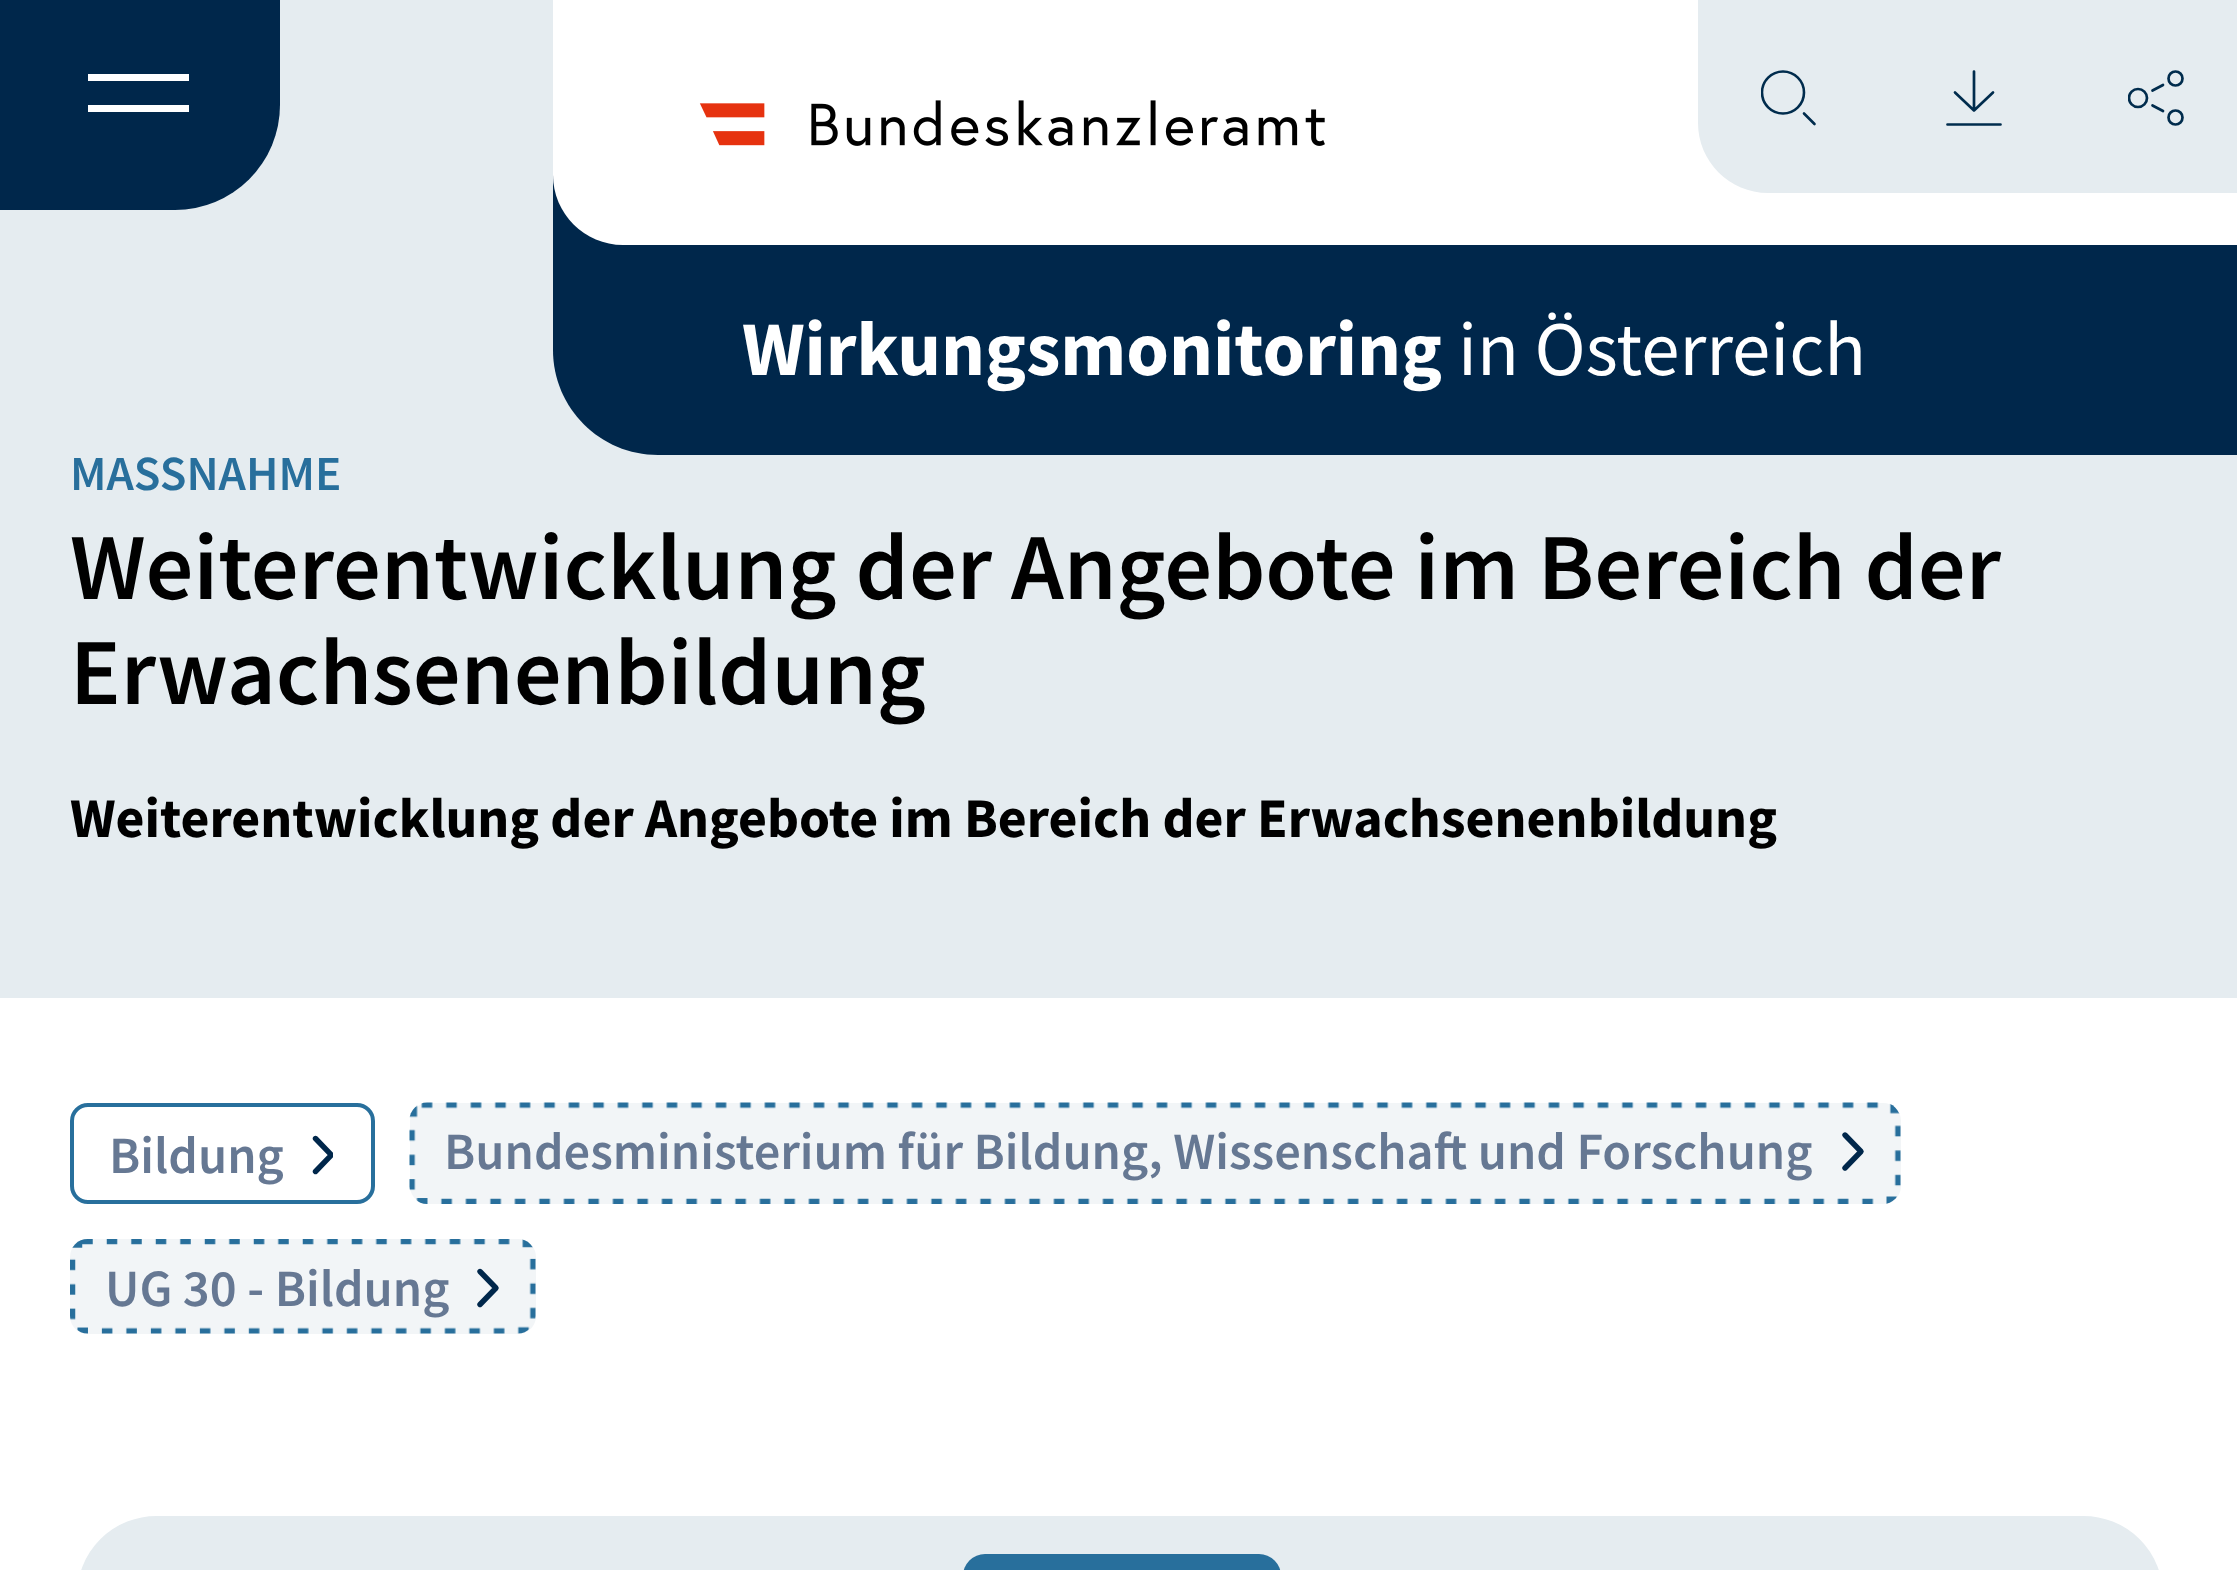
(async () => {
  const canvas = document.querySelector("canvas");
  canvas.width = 2237;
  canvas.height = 1570;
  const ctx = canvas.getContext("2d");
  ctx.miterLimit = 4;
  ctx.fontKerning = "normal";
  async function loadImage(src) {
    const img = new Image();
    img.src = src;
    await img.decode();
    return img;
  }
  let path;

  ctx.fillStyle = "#e5ecf0";
  ctx.fillRect(0, 0, 2237, 1570);
  ctx.fillStyle = "#00274b";
  ctx.beginPath();
  ctx.roundRect(0, 0, 280, 210, [0, 0, 105, 0]);
  ctx.fill();
  ctx.fillStyle = "#ffffff";
  ctx.fillRect(88, 74, 101, 7);
  ctx.fillRect(88, 105, 101, 7);
  ctx.fillStyle = "#00274b";
  path = new Path2D("M553 0H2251V455H658C600 455 553 408 553 350Z");
  ctx.fill(path);
  ctx.fillStyle = "#ffffff";
  path = new Path2D("M553 0H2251V245H623C584.5 245 553 213.5 553 175Z");
  ctx.fill(path);
  ctx.drawImage(await loadImage("img/1.png"), 699, 100, 626, 46);
  ctx.fillStyle = "#e5ecf0";
  path = new Path2D("M1698 0H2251V193H1768C1729.5 193 1698 161.5 1698 123Z");
  ctx.fill(path);
  path = new Path2D("M1814.5 124L1804 113.5");
  ctx.strokeStyle = "#002c4d";
  ctx.lineWidth = 2.6;
  ctx.lineCap = "round";
  ctx.lineJoin = "round";
  ctx.stroke(path);
  ctx.save();
  ctx.beginPath();
  ctx.rect(1761, 70, 56, 56);
  ctx.clip();
  ctx.beginPath();
  ctx.arc(1783, 92.5, 21, 0, Math.PI * 2);
  ctx.stroke();
  ctx.restore();
  path = new Path2D("M1974 71.5V110.5M1993 92.5L1974 110.5L1955 92.5M2000.5 124.5H1947.5");
  ctx.lineWidth = 2.7;
  ctx.stroke(path);
  path = new Path2D("M2152.5 90.5L2163 85M2152.5 105.5L2163 111");
  ctx.stroke(path);
  ctx.beginPath();
  ctx.arc(2175.5, 78.5, 7, 0, Math.PI * 2);
  ctx.stroke();
  ctx.beginPath();
  ctx.arc(2175.5, 117.5, 7, 0, Math.PI * 2);
  ctx.stroke();
  ctx.save();
  ctx.beginPath();
  ctx.rect(2128, 70, 56, 56);
  ctx.clip();
  ctx.beginPath();
  ctx.arc(2138, 98, 9, 0, Math.PI * 2);
  ctx.stroke();
  ctx.restore();
  ctx.fillStyle = "#ffffff";
  ctx.fillRect(0, 998, 2237, 572);
  ctx.beginPath();
  ctx.roundRect(72, 1105, 301, 97, 16);
  ctx.strokeStyle = "#286f9c";
  ctx.lineWidth = 4;
  ctx.lineJoin = "miter";
  ctx.stroke();
  ctx.save();
  ctx.beginPath();
  ctx.rect(312, 1134, 21, 42);
  ctx.clip();
  path = new Path2D("M315.5 1138.5L331.5 1155L315.5 1171.5");
  ctx.strokeStyle = "#00274b";
  ctx.lineWidth = 5.4;
  ctx.lineJoin = "round";
  ctx.stroke(path);
  ctx.restore();
  ctx.fillStyle = "#f2f5f7";
  ctx.beginPath();
  ctx.roundRect(410, 1103, 1491, 101, 18);
  ctx.fill();
  ctx.drawImage(await loadImage("img/2.png"), 409, 1102, 1492, 102);
  path = new Path2D("M1845 1135L1861 1151.5L1845 1168");
  ctx.strokeStyle = "#00274b";
  ctx.lineWidth = 5.4;
  ctx.lineJoin = "round";
  ctx.stroke(path);
  ctx.beginPath();
  ctx.roundRect(70, 1239, 466, 95, 18);
  ctx.fill();
  ctx.drawImage(await loadImage("img/3.png"), 70, 1239, 466, 95);
  path = new Path2D("M480 1271.5L496 1288L480 1304.5");
  ctx.stroke(path);
  ctx.fillStyle = "#e5ecf0";
  ctx.beginPath();
  ctx.roundRect(73.5, 1512.5, 2093, 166, 101.5);
  ctx.fill();
  ctx.strokeStyle = "#ffffff";
  ctx.lineWidth = 7;
  ctx.lineJoin = "miter";
  ctx.stroke();
  ctx.fillStyle = "#286f9c";
  ctx.beginPath();
  ctx.roundRect(963, 1554, 318, 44, 28);
  ctx.fill();
  ctx.font = "bold 77px Source Sans Pro";
  ctx.fillStyle = "#ffffff";
  ctx.fillText("Wirkungsmonitoring", 742, 375);
  ctx.font = "77px Source Sans Pro";
  ctx.fillText("in Österreich", 1458, 375);
  ctx.font = "600 49px Source Sans Pro";
  ctx.fillStyle = "#286f9c";
  ctx.fillText("MASSNAHME", 70, 490);
  ctx.font = "600 94.5px Source Sans Pro";
  ctx.fillStyle = "#000000";
  ctx.fillText("Weiterentwicklung der Angebote im Bereich der", 70, 599);
  ctx.fillText("Erwachsenenbildung", 70, 704);
  ctx.font = "bold 56px Source Sans Pro";
  ctx.fillText("Weiterentwicklung der Angebote im Bereich der Erwachsenenbildung", 70, 837);
  ctx.font = "600 52.5px Source Sans Pro";
  ctx.fillStyle = "#667893";
  for (const [text, x, y] of [
    ["Bildung", 109, 1173],
    ["Bundesministerium für Bildung, Wissenschaft und Forschung", 444, 1169],
    ["UG 30 - Bildung", 105, 1306],
  ]) {
    ctx.fillText(text, x, y);
  }
})();
